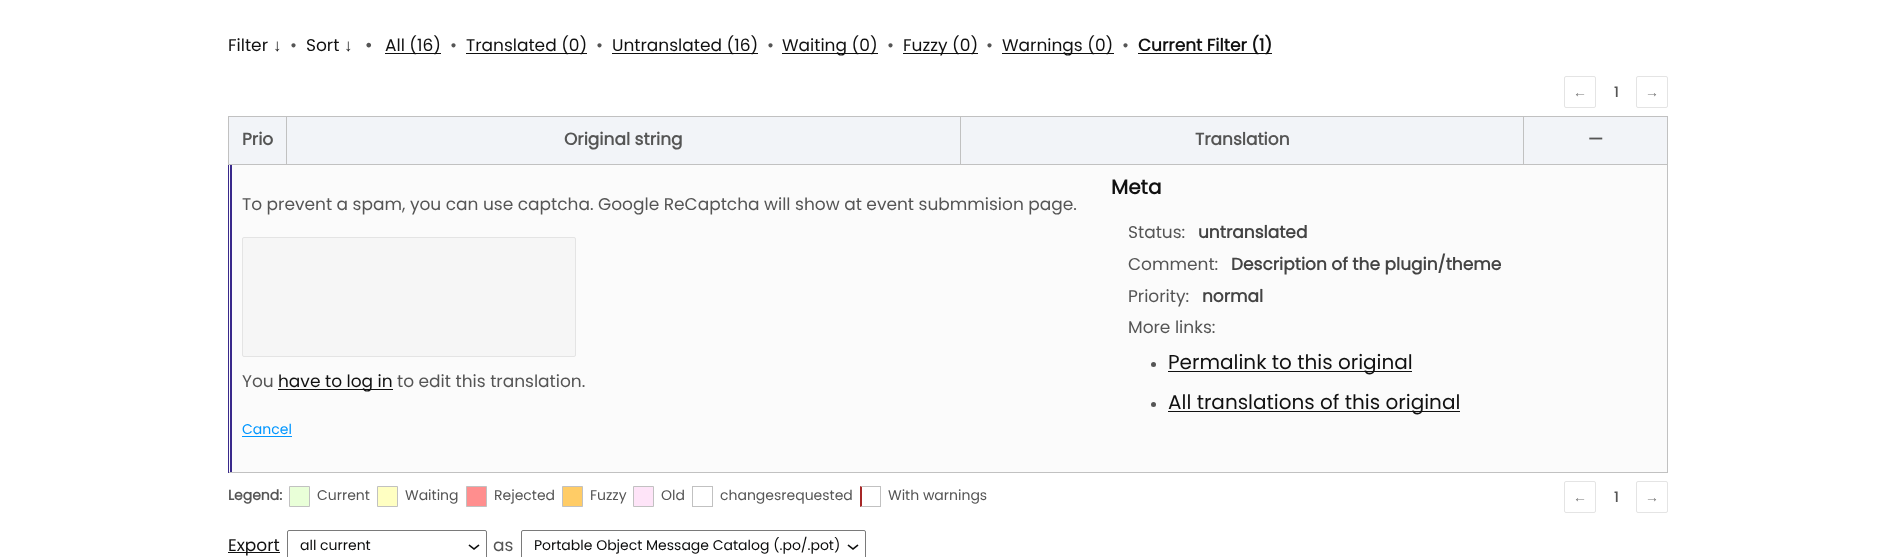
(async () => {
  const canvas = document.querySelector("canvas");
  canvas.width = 1896;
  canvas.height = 557;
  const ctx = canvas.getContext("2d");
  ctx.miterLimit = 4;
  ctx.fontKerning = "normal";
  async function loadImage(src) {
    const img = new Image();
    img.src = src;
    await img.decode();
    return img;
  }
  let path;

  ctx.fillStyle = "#ffffff";
  ctx.fillRect(0, 0, 1896, 557);
  for (const [x, y, w, h, color] of [
    [385, 53, 56, 1, "#111111"],
    [466, 53, 121, 1, "#111111"],
    [612, 53, 146, 1, "#111111"],
    [782, 53, 96, 1, "#111111"],
    [903, 53, 75, 1, "#111111"],
    [1002, 53, 112, 1, "#111111"],
    [1138, 53, 134, 1, "#111111"],
  ]) {
    ctx.fillStyle = color;
    ctx.fillRect(x, y, w, h);
  }
  ctx.beginPath();
  ctx.roundRect(1564.5, 76.5, 31, 31, 1.5);
  ctx.strokeStyle = "#e4e4e4";
  ctx.stroke();
  ctx.beginPath();
  ctx.roundRect(1636.5, 76.5, 31, 31, 1.5);
  ctx.stroke();
  for (const [x, y, w, h, color] of [
    [228, 116, 1440, 1, "#c1c1c1"],
    [1667, 116, 1, 357, "#c1c1c1"],
    [228, 472, 1440, 1, "#c1c1c1"],
    [228, 116, 1, 48, "#c1c1c1"],
    [229, 117, 57, 47, "#f2f4f8"],
    [1523, 164, 145, 1, "#c1c1c1"],
    [1523, 116, 1, 49, "#c1c1c1"],
    [960, 164, 564, 1, "#c1c1c1"],
    [960, 116, 1, 49, "#c1c1c1"],
    [286, 164, 675, 1, "#c1c1c1"],
    [286, 116, 1, 49, "#c1c1c1"],
    [229, 165, 1438, 307, "#fbfbfb"],
    [230, 164, 2, 308, "#39298b"],
    [228, 164, 1, 309, "#39298b"],
    [228, 164, 59, 1, "#c1c1c1"],
    [287, 117, 673, 47, "#f2f4f8"],
    [961, 117, 562, 47, "#f2f4f8"],
    [1524, 117, 143, 47, "#f2f4f8"],
  ]) {
    ctx.fillStyle = color;
    ctx.fillRect(x, y, w, h);
  }
  ctx.fillStyle = "#f6f6f6";
  ctx.beginPath();
  ctx.roundRect(242.5, 237.5, 333, 119, 1.5);
  ctx.fill();
  ctx.stroke();
  ctx.fillStyle = "#111111";
  ctx.fillRect(278, 389, 115, 1);
  ctx.fillStyle = "#0096ff";
  ctx.fillRect(242, 436, 50, 1);
  ctx.fillStyle = "#555555";
  ctx.beginPath();
  ctx.arc(1153.5, 364.5, 2.5, 0, Math.PI * 2);
  ctx.fill();
  ctx.fillStyle = "#111111";
  ctx.fillRect(1168, 371, 244, 1);
  ctx.fillStyle = "#555555";
  ctx.beginPath();
  ctx.arc(1153.5, 404.5, 2.5, 0, Math.PI * 2);
  ctx.fill();
  ctx.fillStyle = "#111111";
  ctx.fillRect(1168, 411, 292, 1);
  ctx.fillStyle = "#e9ffd8";
  ctx.beginPath();
  ctx.rect(289.5, 486.5, 20, 20);
  ctx.fill();
  ctx.strokeStyle = "#c1c1c1";
  ctx.stroke();
  ctx.fillStyle = "#ffffc2";
  ctx.beginPath();
  ctx.rect(377.5, 486.5, 20, 20);
  ctx.fill();
  ctx.stroke();
  ctx.fillStyle = "#ff8e8e";
  ctx.beginPath();
  ctx.rect(466.5, 486.5, 20, 20);
  ctx.fill();
  ctx.stroke();
  ctx.fillStyle = "#ffcc66";
  ctx.beginPath();
  ctx.rect(562.5, 486.5, 20, 20);
  ctx.fill();
  ctx.stroke();
  ctx.fillStyle = "#fee4f8";
  ctx.beginPath();
  ctx.rect(633.5, 486.5, 20, 20);
  ctx.fill();
  ctx.stroke();
  ctx.strokeRect(692.5, 486.5, 20, 20);
  ctx.fillStyle = "#c1c1c1";
  path = new Path2D("M860 486H881L880 487H862Z");
  ctx.fill(path);
  ctx.fillRect(880, 486, 1, 21);
  path = new Path2D("M881 507H860L862 506H880Z");
  ctx.fill(path);
  ctx.fillStyle = "#a62626";
  path = new Path2D("M860 507V486L862 487V506Z");
  ctx.fill(path);
  ctx.beginPath();
  ctx.roundRect(1564.5, 481.5, 31, 31, 1.5);
  ctx.strokeStyle = "#e4e4e4";
  ctx.stroke();
  ctx.beginPath();
  ctx.roundRect(1636.5, 481.5, 31, 31, 1.5);
  ctx.stroke();
  ctx.fillStyle = "#111111";
  ctx.fillRect(228, 552, 52, 1);
  ctx.drawImage(await loadImage("img/1.png"), 468, 544, 12, 6);
  ctx.beginPath();
  ctx.roundRect(287.5, 530.5, 199, 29, 1.5);
  ctx.strokeStyle = "#7a7a7a";
  ctx.stroke();
  ctx.drawImage(await loadImage("img/1.png"), 847, 544, 12, 6);
  ctx.beginPath();
  ctx.roundRect(521.5, 530.5, 344, 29, 1.5);
  ctx.stroke();
  ctx.font = "17px Poppins";
  ctx.fillText("Filter", 228, 51);
  ctx.font = "17px Liberation Serif";
  ctx.fillText("↓", 273, 51);
  ctx.font = "17px Poppins";
  ctx.fillStyle = "#555555";
  ctx.fillText("•", 290, 51);
  ctx.fillStyle = "#111111";
  ctx.fillText("Sort", 306, 51);
  ctx.font = "17px Liberation Serif";
  ctx.fillText("↓", 344, 51);
  ctx.font = "bold 17px Poppins";
  ctx.fillStyle = "#555555";
  ctx.fillText("•", 365, 51);
  ctx.font = "17px Poppins";
  ctx.fillStyle = "#111111";
  ctx.fillText("All (16)", 385, 51);
  ctx.fillStyle = "#555555";
  ctx.fillText("•", 450, 51);
  ctx.fillStyle = "#111111";
  ctx.fillText("Translated (0)", 466, 51);
  ctx.fillStyle = "#555555";
  ctx.fillText("•", 596, 51);
  ctx.fillStyle = "#111111";
  ctx.fillText("Untranslated (16)", 612, 51);
  ctx.fillStyle = "#555555";
  ctx.fillText("•", 767, 51);
  ctx.fillStyle = "#111111";
  ctx.fillText("Waiting (0)", 782, 51);
  ctx.fillStyle = "#555555";
  ctx.fillText("•", 887, 51);
  ctx.fillStyle = "#111111";
  ctx.fillText("Fuzzy (0)", 903, 51);
  ctx.fillStyle = "#555555";
  ctx.fillText("•", 986, 51);
  ctx.fillStyle = "#111111";
  ctx.fillText("Warnings (0)", 1002, 51);
  ctx.fillStyle = "#555555";
  ctx.fillText("•", 1122, 51);
  ctx.font = "bold 17px Poppins";
  ctx.fillStyle = "#111111";
  ctx.fillText("Current Filter (1)", 1138, 51);
  ctx.font = "14px Liberation Serif";
  ctx.fillStyle = "#7a7a7a";
  ctx.fillText("←", 1573, 97);
  ctx.font = "bold 14px Poppins";
  ctx.fillStyle = "#555555";
  ctx.fillText("1", 1614, 97);
  ctx.font = "14px Liberation Serif";
  ctx.fillStyle = "#7a7a7a";
  ctx.fillText("→", 1645, 97);
  ctx.font = "bold 17px Poppins";
  ctx.fillStyle = "#555555";
  for (const [text, x, y] of [
    ["Prio", 242, 145],
    ["Original string", 564, 145],
    ["Translation", 1195, 145],
    ["—", 1588, 145],
  ]) {
    ctx.fillText(text, x, y);
  }
  ctx.font = "17px Poppins";
  ctx.fillText("To prevent a spam, you can use captcha. Google ReCaptcha will show at event submmision page.", 242, 210);
  ctx.fillText("You", 242, 387);
  ctx.fillStyle = "#111111";
  ctx.fillText("have to log in", 278, 387);
  ctx.fillStyle = "#555555";
  ctx.fillText("to edit this translation.", 397, 387);
  ctx.font = "14px Poppins";
  ctx.fillStyle = "#0096ff";
  ctx.fillText("Cancel", 242, 434);
  ctx.font = "bold 20px Poppins";
  ctx.fillStyle = "#111111";
  ctx.fillText("Meta", 1111, 194);
  ctx.font = "17px Poppins";
  ctx.fillStyle = "#555555";
  ctx.fillText("Status:", 1128, 238);
  ctx.font = "bold 17px Poppins";
  ctx.fillStyle = "#444444";
  ctx.fillText("untranslated", 1198, 238);
  ctx.font = "17px Poppins";
  ctx.fillStyle = "#555555";
  ctx.fillText("Comment:", 1128, 270);
  ctx.font = "bold 17px Poppins";
  ctx.fillStyle = "#444444";
  ctx.fillText("Description of the plugin/theme", 1231, 270);
  ctx.font = "17px Poppins";
  ctx.fillStyle = "#555555";
  ctx.fillText("Priority:", 1128, 302);
  ctx.font = "bold 17px Poppins";
  ctx.fillStyle = "#444444";
  ctx.fillText("normal", 1202, 302);
  ctx.font = "17px Poppins";
  ctx.fillStyle = "#555555";
  ctx.fillText("More links:", 1128, 333);
  ctx.font = "20px Poppins";
  ctx.fillStyle = "#111111";
  ctx.fillText("Permalink to this original", 1168, 369);
  ctx.fillText("All translations of this original", 1168, 409);
  ctx.font = "bold 14px Poppins";
  ctx.fillStyle = "#555555";
  ctx.fillText("Legend:", 228, 500);
  ctx.font = "14px Poppins";
  for (const [text, x, y] of [
    ["Current", 317, 500],
    ["Waiting", 405, 500],
    ["Rejected", 494, 500],
    ["Fuzzy", 590, 500],
    ["Old", 661, 500],
    ["changesrequested", 720, 500],
    ["With warnings", 888, 500],
  ]) {
    ctx.fillText(text, x, y);
  }
  ctx.font = "14px Liberation Serif";
  ctx.fillStyle = "#7a7a7a";
  ctx.fillText("←", 1573, 502);
  ctx.font = "bold 14px Poppins";
  ctx.fillStyle = "#555555";
  ctx.fillText("1", 1614, 502);
  ctx.font = "14px Liberation Serif";
  ctx.fillStyle = "#7a7a7a";
  ctx.fillText("→", 1645, 502);
  ctx.font = "17px Poppins";
  ctx.fillStyle = "#111111";
  ctx.fillText("Export", 228, 551);
  ctx.font = "14px Poppins";
  ctx.fillStyle = "#0b0c0c";
  ctx.fillText("all current", 300, 550);
  ctx.font = "17px Poppins";
  ctx.fillStyle = "#555555";
  ctx.fillText("as", 493, 551);
  ctx.font = "14px Poppins";
  ctx.fillStyle = "#0b0c0c";
  ctx.fillText("Portable Object Message Catalog (.po/.pot)", 534, 550);
})();
